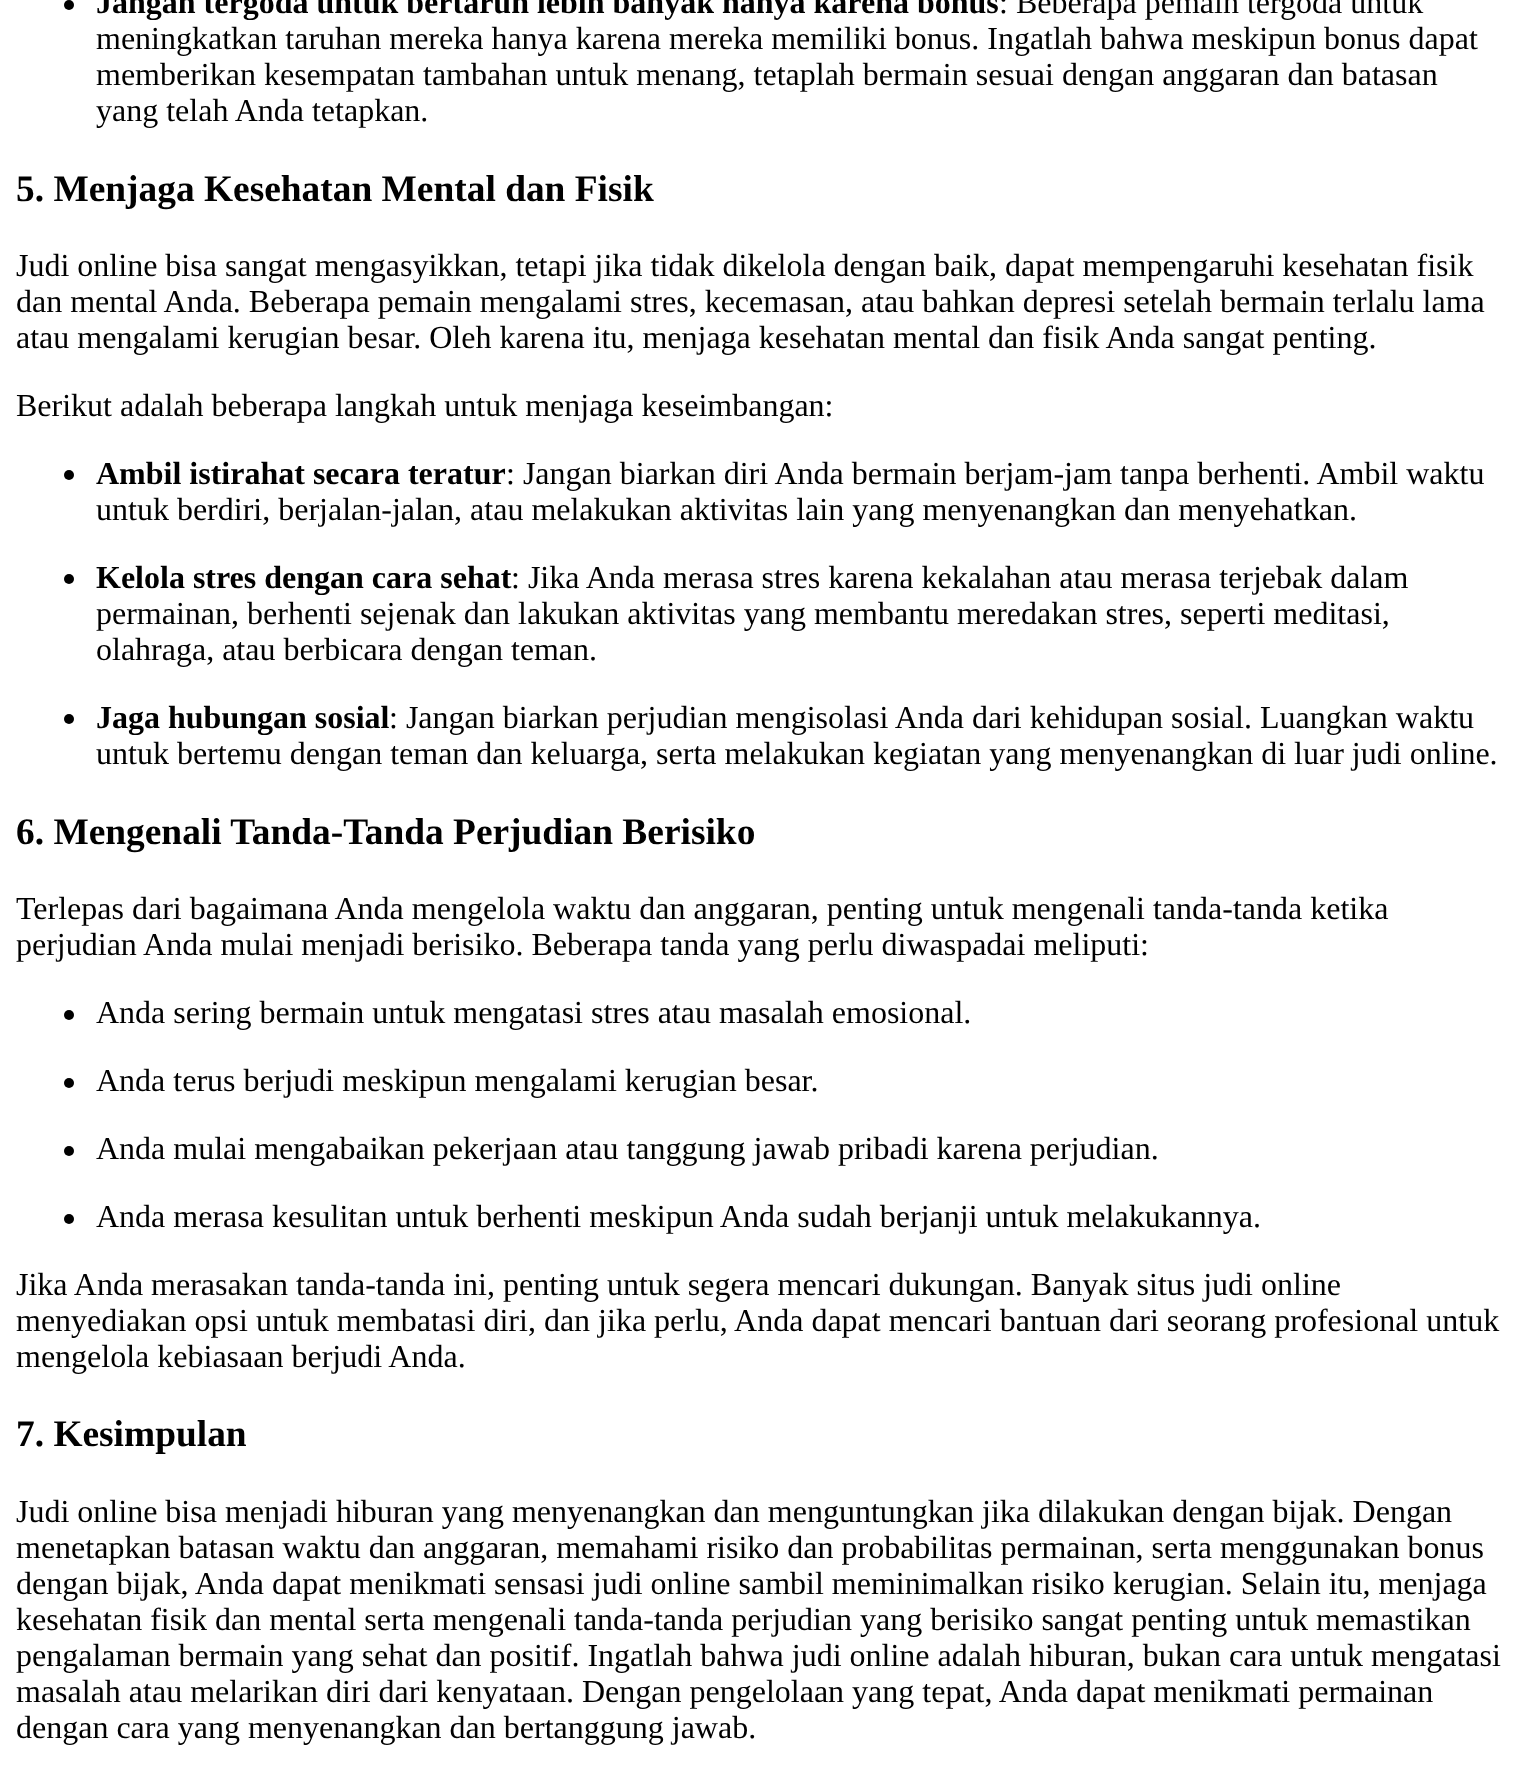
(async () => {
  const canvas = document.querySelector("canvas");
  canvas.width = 1520;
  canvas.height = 1766;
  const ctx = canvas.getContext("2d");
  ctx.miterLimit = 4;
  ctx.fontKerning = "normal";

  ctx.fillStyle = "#ffffff";
  ctx.fillRect(0, 0, 1520, 1766);
  ctx.fillStyle = "#000000";
  ctx.beginPath();
  ctx.arc(69, 5, 5, 0, Math.PI * 2);
  ctx.fill();
  ctx.beginPath();
  ctx.arc(69, 475, 5, 0, Math.PI * 2);
  ctx.fill();
  ctx.beginPath();
  ctx.arc(69, 579, 5, 0, Math.PI * 2);
  ctx.fill();
  ctx.beginPath();
  ctx.arc(69, 719, 5, 0, Math.PI * 2);
  ctx.fill();
  ctx.beginPath();
  ctx.arc(69, 1015, 5, 0, Math.PI * 2);
  ctx.fill();
  ctx.beginPath();
  ctx.arc(69, 1083, 5, 0, Math.PI * 2);
  ctx.fill();
  ctx.beginPath();
  ctx.arc(69, 1151, 5, 0, Math.PI * 2);
  ctx.fill();
  ctx.beginPath();
  ctx.arc(69, 1219, 5, 0, Math.PI * 2);
  ctx.fill();
  ctx.font = "bold 32px Liberation Serif";
  ctx.fillText("Jangan tergoda untuk bertaruh lebih banyak hanya karena bonus", 96, 13);
  ctx.font = "32px Liberation Serif";
  for (const [text, x, y] of [
    [": Beberapa pemain tergoda untuk", 999, 13],
    ["meningkatkan taruhan mereka hanya karena mereka memiliki bonus. Ingatlah bahwa meskipun bonus dapat", 96, 49],
    ["memberikan kesempatan tambahan untuk menang, tetaplah bermain sesuai dengan anggaran dan batasan", 96, 85],
    ["yang telah Anda tetapkan.", 96, 121],
  ]) {
    ctx.fillText(text, x, y);
  }
  ctx.font = "bold 37.4px Liberation Serif";
  ctx.fillText("5. Menjaga Kesehatan Mental dan Fisik", 16, 201);
  ctx.font = "32px Liberation Serif";
  for (const [text, x, y] of [
    ["Judi online bisa sangat mengasyikkan, tetapi jika tidak dikelola dengan baik, dapat mempengaruhi kesehatan fisik", 16, 276],
    ["dan mental Anda. Beberapa pemain mengalami stres, kecemasan, atau bahkan depresi setelah bermain terlalu lama", 16, 312],
    ["atau mengalami kerugian besar. Oleh karena itu, menjaga kesehatan mental dan fisik Anda sangat penting.", 16, 348],
    ["Berikut adalah beberapa langkah untuk menjaga keseimbangan:", 16, 416],
  ]) {
    ctx.fillText(text, x, y);
  }
  ctx.font = "bold 32px Liberation Serif";
  ctx.fillText("Ambil istirahat secara teratur", 96, 484);
  ctx.font = "32px Liberation Serif";
  ctx.fillText(": Jangan biarkan diri Anda bermain berjam-jam tanpa berhenti. Ambil waktu", 506, 484);
  ctx.fillText("untuk berdiri, berjalan-jalan, atau melakukan aktivitas lain yang menyenangkan dan menyehatkan.", 96, 520);
  ctx.font = "bold 32px Liberation Serif";
  ctx.fillText("Kelola stres dengan cara sehat", 96, 588);
  ctx.font = "32px Liberation Serif";
  for (const [text, x, y] of [
    [": Jika Anda merasa stres karena kekalahan atau merasa terjebak dalam", 511, 588],
    ["permainan, berhenti sejenak dan lakukan aktivitas yang membantu meredakan stres, seperti meditasi,", 96, 624],
    ["olahraga, atau berbicara dengan teman.", 96, 660],
  ]) {
    ctx.fillText(text, x, y);
  }
  ctx.font = "bold 32px Liberation Serif";
  ctx.fillText("Jaga hubungan sosial", 96, 728);
  ctx.font = "32px Liberation Serif";
  ctx.fillText(": Jangan biarkan perjudian mengisolasi Anda dari kehidupan sosial. Luangkan waktu", 389, 728);
  ctx.fillText("untuk bertemu dengan teman dan keluarga, serta melakukan kegiatan yang menyenangkan di luar judi online.", 96, 764);
  ctx.font = "bold 37.4px Liberation Serif";
  ctx.fillText("6. Mengenali Tanda-Tanda Perjudian Berisiko", 16, 844);
  ctx.font = "32px Liberation Serif";
  for (const [text, x, y] of [
    ["Terlepas dari bagaimana Anda mengelola waktu dan anggaran, penting untuk mengenali tanda-tanda ketika", 16, 919],
    ["perjudian Anda mulai menjadi berisiko. Beberapa tanda yang perlu diwaspadai meliputi:", 16, 955],
    ["Anda sering bermain untuk mengatasi stres atau masalah emosional.", 96, 1023],
    ["Anda terus berjudi meskipun mengalami kerugian besar.", 96, 1091],
    ["Anda mulai mengabaikan pekerjaan atau tanggung jawab pribadi karena perjudian.", 96, 1159],
    ["Anda merasa kesulitan untuk berhenti meskipun Anda sudah berjanji untuk melakukannya.", 96, 1227],
    ["Jika Anda merasakan tanda-tanda ini, penting untuk segera mencari dukungan. Banyak situs judi online", 16, 1295],
    ["menyediakan opsi untuk membatasi diri, dan jika perlu, Anda dapat mencari bantuan dari seorang profesional untuk", 16, 1331],
    ["mengelola kebiasaan berjudi Anda.", 16, 1367],
  ]) {
    ctx.fillText(text, x, y);
  }
  ctx.font = "bold 37.4px Liberation Serif";
  ctx.fillText("7. Kesimpulan", 16, 1446);
  ctx.font = "32px Liberation Serif";
  for (const [text, x, y] of [
    ["Judi online bisa menjadi hiburan yang menyenangkan dan menguntungkan jika dilakukan dengan bijak. Dengan", 16, 1522],
    ["menetapkan batasan waktu dan anggaran, memahami risiko dan probabilitas permainan, serta menggunakan bonus", 16, 1558],
    ["dengan bijak, Anda dapat menikmati sensasi judi online sambil meminimalkan risiko kerugian. Selain itu, menjaga", 16, 1594],
    ["kesehatan fisik dan mental serta mengenali tanda-tanda perjudian yang berisiko sangat penting untuk memastikan", 16, 1630],
    ["pengalaman bermain yang sehat dan positif. Ingatlah bahwa judi online adalah hiburan, bukan cara untuk mengatasi", 16, 1666],
    ["masalah atau melarikan diri dari kenyataan. Dengan pengelolaan yang tepat, Anda dapat menikmati permainan", 16, 1702],
    ["dengan cara yang menyenangkan dan bertanggung jawab.", 16, 1738],
  ]) {
    ctx.fillText(text, x, y);
  }
})();
